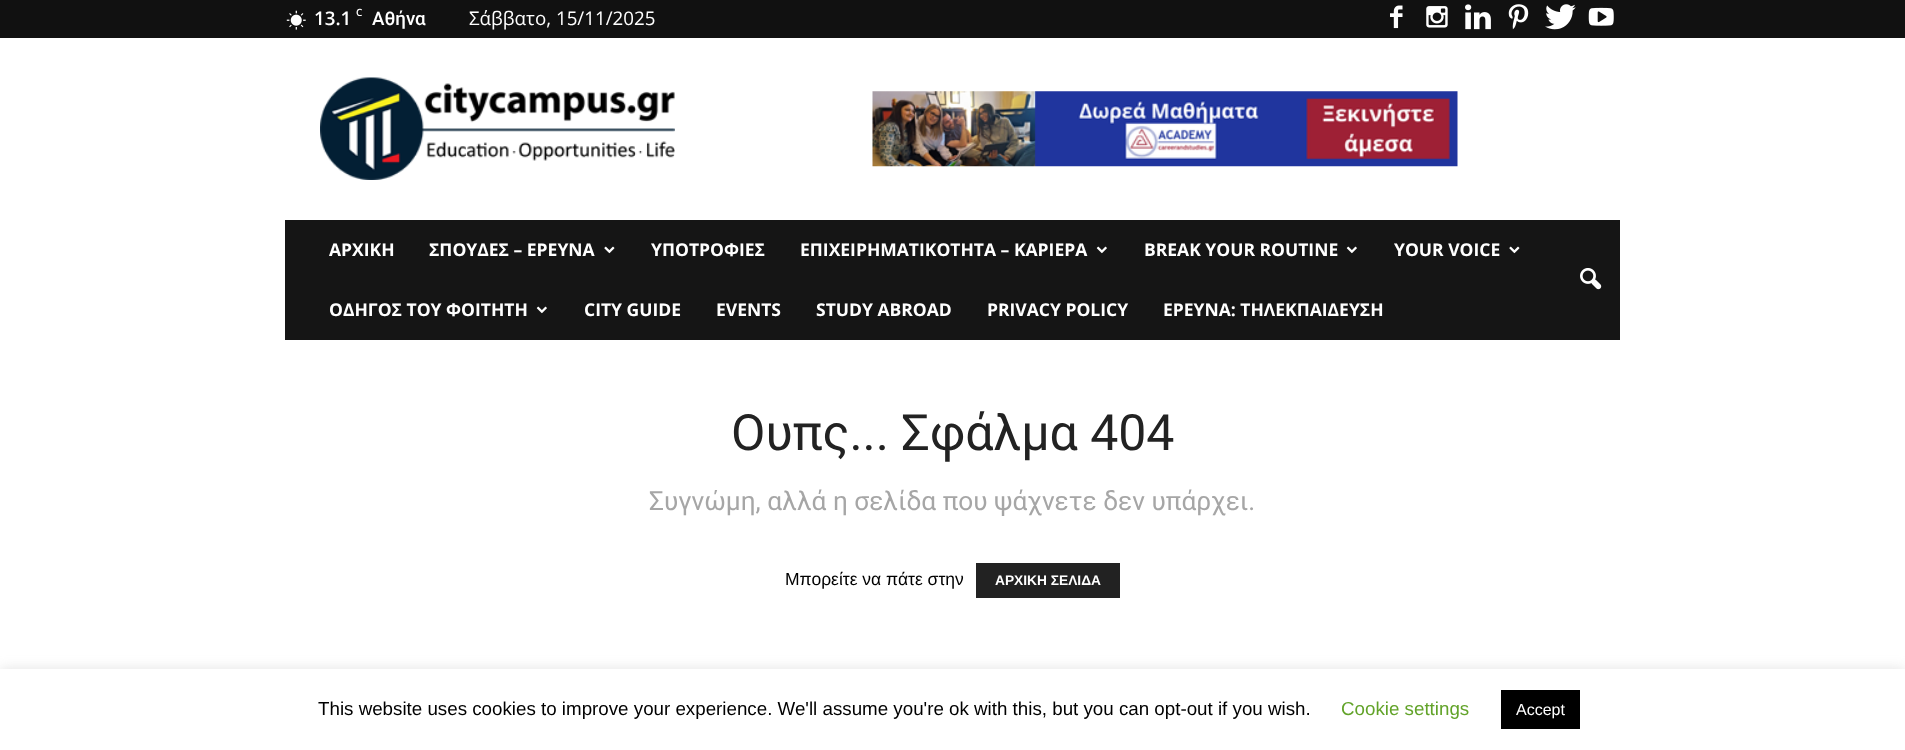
(async () => {
  const canvas = document.querySelector("canvas");
  canvas.width = 1905;
  canvas.height = 750;
  const ctx = canvas.getContext("2d");
  ctx.miterLimit = 4;
  ctx.fontKerning = "normal";
  async function loadImage(src) {
    const img = new Image();
    img.src = src;
    await img.decode();
    return img;
  }

  ctx.fillStyle = "#ffffff";
  ctx.fillRect(0, 0, 1905, 750);
  ctx.fillStyle = "#111111";
  ctx.fillRect(0, 0, 1905, 38);
  ctx.drawImage(await loadImage("img/1.png"), 286, 10, 20, 20);
  ctx.drawImage(await loadImage("img/2.png"), 1390, 5, 13, 24);
  ctx.drawImage(await loadImage("img/3.png"), 1426, 6, 22, 22);
  ctx.drawImage(await loadImage("img/4.png"), 1465, 4, 26, 26);
  ctx.drawImage(await loadImage("img/5.png"), 1508, 4, 21, 26);
  ctx.drawImage(await loadImage("img/6.png"), 1545, 4, 31, 26);
  ctx.drawImage(await loadImage("img/7.png"), 1588, 7, 26, 19);
  ctx.drawImage(await loadImage("img/8.png"), 320, 77, 355, 103);
  ctx.drawImage(await loadImage("img/9.png"), 872, 91, 586, 76);
  ctx.fillStyle = "#151515";
  ctx.fillRect(285, 220, 1335, 120);
  ctx.drawImage(await loadImage("img/10.png"), 604, 246, 11, 8);
  ctx.drawImage(await loadImage("img/11.png"), 1096, 246, 11, 8);
  ctx.drawImage(await loadImage("img/11.png"), 1346, 246, 11, 8);
  ctx.drawImage(await loadImage("img/10.png"), 1509, 246, 11, 8);
  ctx.drawImage(await loadImage("img/11.png"), 536, 306, 11, 8);
  ctx.drawImage(await loadImage("img/12.png"), 1580, 268, 22, 22);
  ctx.fillStyle = "#222222";
  ctx.fillRect(976, 563, 144, 35);
  ctx.fillStyle = "rgba(172, 171, 171, 0.3)";
  ctx.filter = "blur(6px)";
  ctx.beginPath();
  ctx.rect(0, 668, 1905, 81);
  ctx.fill();
  ctx.filter = "none";
  ctx.fillStyle = "#ffffff";
  ctx.fillRect(0, 669, 1905, 81);
  ctx.fillStyle = "#000000";
  ctx.fillRect(1501, 690, 79, 39);
  ctx.font = "600 18.75px Open Sans";
  ctx.fillStyle = "#ffffff";
  ctx.fillText("13.1", 314, 25);
  ctx.font = "600 10px Open Sans";
  ctx.fillText("C", 356, 16);
  ctx.font = "500 18.75px Roboto";
  ctx.fillText("Αθήνα", 372, 25);
  ctx.font = "18.75px Open Sans";
  ctx.fillText("Σάββατο, 15/11/2025", 469, 25);
  ctx.font = "bold 17.5px Open Sans";
  for (const [text, x, y] of [
    ["ΑΡΧΙΚΗ", 329, 256],
    ["ΣΠΟΥΔΕΣ – ΕΡΕΥΝΑ", 429, 256],
    ["ΥΠΟΤΡOΦΙΕΣ", 651, 256],
    ["ΕΠΙΧΕΙΡΗΜΑΤΙΚΟΤΗΤΑ – ΚΑΡΙΕΡΑ", 800, 256],
    ["BREAK YOUR ROUTINE", 1144, 256],
    ["YOUR VOICE", 1394, 256],
    ["ΟΔΗΓΟΣ ΤΟΥ ΦΟΙΤΗΤΗ", 329, 316],
    ["CITY GUIDE", 584, 316],
    ["EVENTS", 716, 316],
    ["STUDY ABROAD", 816, 316],
    ["PRIVACY POLICY", 987, 316],
    ["ΕΡΕΥΝΑ: ΤΗΛΕΚΠΑΙΔΕΥΣΗ", 1163, 316],
  ]) {
    ctx.fillText(text, x, y);
  }
  ctx.font = "50px Roboto";
  ctx.fillStyle = "#222222";
  ctx.fillText("Ουπς... Σφάλμα 404", 731, 450);
  ctx.font = "26.25px Roboto";
  ctx.fillStyle = "#a6a6a6";
  ctx.fillText("Συγνώμη, αλλά η σελίδα που ψάχνετε δεν υπάρχει.", 649, 510);
  ctx.font = "17.5px Liberation Sans";
  ctx.fillStyle = "#000000";
  ctx.fillText("Μπορείτε να πάτε στην", 785, 585);
  ctx.font = "bold 13.75px Liberation Sans";
  ctx.fillStyle = "#ffffff";
  ctx.fillText("ΑΡΧΙΚΗ ΣΕΛΙΔΑ", 995, 585);
  ctx.font = "18.75px Liberation Sans";
  ctx.fillStyle = "#000000";
  ctx.fillText("This website uses cookies to improve your experience. We'll assume you're ok with this, but you can opt-out if you wish.", 318, 715);
  ctx.fillStyle = "#62a329";
  ctx.fillText("Cookie settings", 1341, 715);
  ctx.font = "16px Liberation Sans";
  ctx.fillStyle = "#ffffff";
  ctx.fillText("Accept", 1516, 715);
})();
